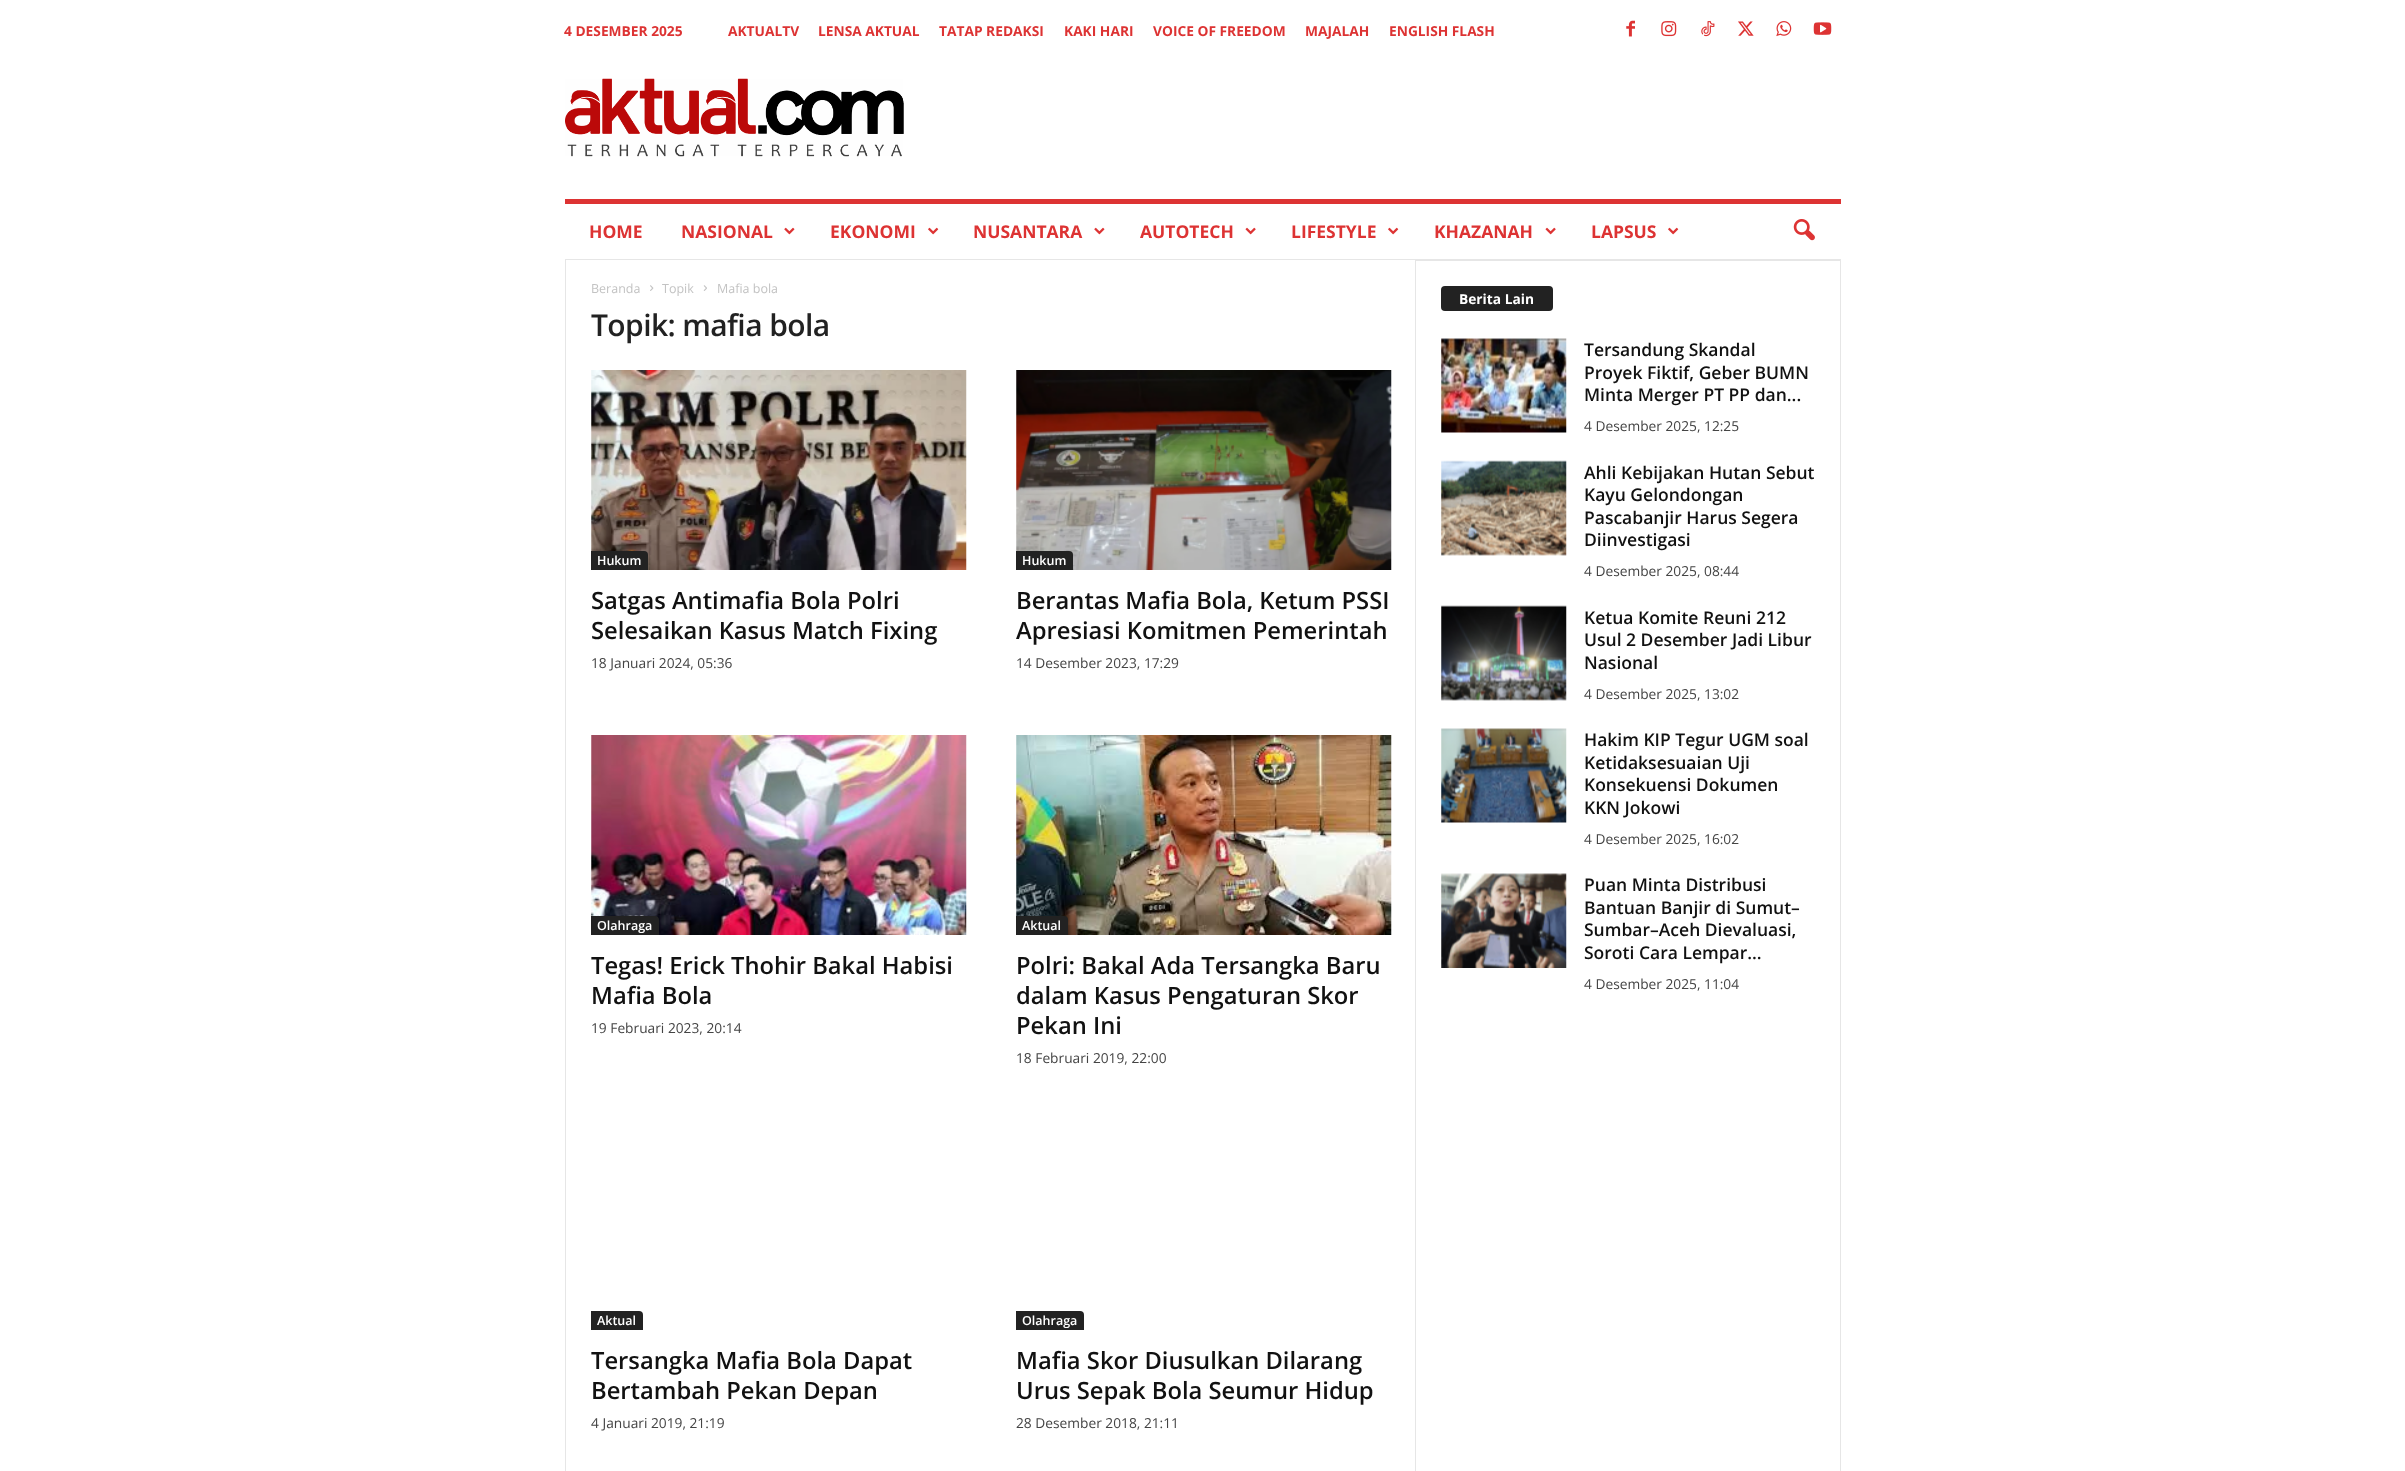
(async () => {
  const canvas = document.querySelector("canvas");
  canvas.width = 2405;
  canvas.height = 1471;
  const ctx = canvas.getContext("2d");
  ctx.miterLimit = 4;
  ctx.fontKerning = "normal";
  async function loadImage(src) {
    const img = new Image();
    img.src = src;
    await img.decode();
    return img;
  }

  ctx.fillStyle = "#ffffff";
  ctx.fillRect(0, 0, 2405, 1471);
  ctx.drawImage(await loadImage("img/1.png"), 1626, 20, 9, 17);
  ctx.drawImage(await loadImage("img/2.png"), 1661, 21, 16, 16);
  ctx.drawImage(await loadImage("img/3.png"), 1701, 21, 14, 16);
  ctx.drawImage(await loadImage("img/4.png"), 1738, 21, 16, 15);
  ctx.drawImage(await loadImage("img/5.png"), 1776, 21, 16, 16);
  ctx.drawImage(await loadImage("img/6.png"), 1813, 22, 19, 13);
  ctx.drawImage(await loadImage("img/7.png"), 565, 78, 339, 79);
  ctx.fillStyle = "#e6e6e6";
  ctx.fillRect(565, 259, 1276, 1);
  ctx.fillStyle = "#dd3333";
  ctx.fillRect(565, 199, 1276, 5);
  ctx.drawImage(await loadImage("img/8.png"), 784, 227, 11, 8);
  ctx.drawImage(await loadImage("img/9.png"), 928, 227, 11, 8);
  ctx.drawImage(await loadImage("img/8.png"), 1094, 227, 11, 8);
  ctx.drawImage(await loadImage("img/10.png"), 1245, 227, 11, 8);
  ctx.drawImage(await loadImage("img/9.png"), 1388, 227, 11, 8);
  ctx.drawImage(await loadImage("img/10.png"), 1545, 227, 11, 8);
  ctx.drawImage(await loadImage("img/9.png"), 1668, 227, 11, 8);
  ctx.drawImage(await loadImage("img/11.png"), 1793, 219, 22, 22);
  ctx.fillStyle = "#e6e6e6";
  ctx.fillRect(565, 260, 1, 1211);
  ctx.drawImage(await loadImage("img/12.png"), 650, 285, 4, 6);
  ctx.drawImage(await loadImage("img/13.png"), 703, 285, 4, 6);
  ctx.drawImage(await loadImage("img/14.png"), 591, 370, 376, 200);
  ctx.fillStyle = "#222222";
  ctx.beginPath();
  ctx.roundRect(591, 551, 57, 19, [0, 4, 0, 0]);
  ctx.fill();
  ctx.drawImage(await loadImage("img/15.png"), 1016, 370, 376, 200);
  ctx.beginPath();
  ctx.roundRect(1016, 551, 57, 19, [0, 4, 0, 0]);
  ctx.fill();
  ctx.drawImage(await loadImage("img/16.png"), 591, 735, 376, 200);
  ctx.beginPath();
  ctx.roundRect(591, 916, 68, 19, [0, 4, 0, 0]);
  ctx.fill();
  ctx.drawImage(await loadImage("img/17.png"), 1016, 735, 376, 200);
  ctx.beginPath();
  ctx.roundRect(1016, 916, 52, 19, [0, 4, 0, 0]);
  ctx.fill();
  ctx.beginPath();
  ctx.roundRect(591, 1311, 52, 19, [0, 4, 0, 0]);
  ctx.fill();
  ctx.beginPath();
  ctx.roundRect(1016, 1311, 68, 19, [0, 4, 0, 0]);
  ctx.fill();
  ctx.fillStyle = "#e6e6e6";
  ctx.fillRect(1415, 260, 1, 1211);
  ctx.fillRect(1416, 260, 424, 1);
  ctx.fillStyle = "#222222";
  ctx.beginPath();
  ctx.roundRect(1441, 286, 112, 25, 4);
  ctx.fill();
  ctx.drawImage(await loadImage("img/18.png"), 1441, 338, 126, 95);
  ctx.drawImage(await loadImage("img/19.png"), 1441, 460, 126, 96);
  ctx.drawImage(await loadImage("img/20.png"), 1441, 605, 126, 96);
  ctx.drawImage(await loadImage("img/21.png"), 1441, 728, 126, 95);
  ctx.drawImage(await loadImage("img/22.png"), 1441, 873, 126, 95);
  ctx.fillStyle = "#e6e6e6";
  ctx.fillRect(1840, 260, 1, 1211);
  ctx.font = "bold 13.75px Open Sans";
  ctx.fillStyle = "#dd3333";
  for (const [text, x, y] of [
    ["4 DESEMBER 2025", 564, 36],
    ["AKTUALTV", 728, 36],
    ["LENSA AKTUAL", 818, 36],
    ["TATAP REDAKSI", 939, 36],
    ["KAKI HARI", 1064, 36],
    ["VOICE OF FREEDOM", 1153, 36],
    ["MAJALAH", 1305, 36],
    ["ENGLISH FLASH", 1389, 36],
  ]) {
    ctx.fillText(text, x, y);
  }
  ctx.font = "bold 17.5px Open Sans";
  for (const [text, x, y] of [
    ["HOME", 589, 238],
    ["NASIONAL", 681, 238],
    ["EKONOMI", 830, 238],
    ["NUSANTARA", 973, 238],
    ["AUTOTECH", 1140, 238],
    ["LIFESTYLE", 1291, 238],
    ["KHAZANAH", 1434, 238],
    ["LAPSUS", 1591, 238],
  ]) {
    ctx.fillText(text, x, y);
  }
  ctx.font = "12.5px Open Sans";
  ctx.fillStyle = "#c3c3c3";
  for (const [text, x, y] of [
    ["Beranda", 591, 293],
    ["Topik", 662, 293],
    ["Mafia bola", 717, 293],
  ]) {
    ctx.fillText(text, x, y);
  }
  ctx.letterSpacing = "-0.6px";
  ctx.font = "600 30px Open Sans";
  ctx.fillStyle = "#222222";
  ctx.fillText("Topik: mafia bola", 591, 336);
  ctx.letterSpacing = "0px";
  ctx.font = "600 12.5px Open Sans";
  ctx.fillStyle = "#ffffff";
  ctx.fillText("Hukum", 597, 565);
  ctx.font = "600 23.75px Open Sans";
  ctx.fillStyle = "#111111";
  ctx.fillText("Satgas Antimafia Bola Polri", 591, 609);
  ctx.fillText("Selesaikan Kasus Match Fixing", 591, 639);
  ctx.font = "13.75px Open Sans";
  ctx.fillStyle = "#444444";
  ctx.fillText("18 Januari 2024, 05:36", 591, 668);
  ctx.font = "600 12.5px Open Sans";
  ctx.fillStyle = "#ffffff";
  ctx.fillText("Hukum", 1022, 565);
  ctx.font = "600 23.75px Open Sans";
  ctx.fillStyle = "#111111";
  ctx.fillText("Berantas Mafia Bola, Ketum PSSI", 1016, 609);
  ctx.fillText("Apresiasi Komitmen Pemerintah", 1016, 639);
  ctx.font = "13.75px Open Sans";
  ctx.fillStyle = "#444444";
  ctx.fillText("14 Desember 2023, 17:29", 1016, 668);
  ctx.font = "600 12.5px Open Sans";
  ctx.fillStyle = "#ffffff";
  ctx.fillText("Olahraga", 597, 930);
  ctx.font = "600 23.75px Open Sans";
  ctx.fillStyle = "#111111";
  ctx.fillText("Tegas! Erick Thohir Bakal Habisi", 591, 974);
  ctx.fillText("Mafia Bola", 591, 1004);
  ctx.font = "13.75px Open Sans";
  ctx.fillStyle = "#444444";
  ctx.fillText("19 Februari 2023, 20:14", 591, 1033);
  ctx.font = "600 12.5px Open Sans";
  ctx.fillStyle = "#ffffff";
  ctx.fillText("Aktual", 1022, 930);
  ctx.font = "600 23.75px Open Sans";
  ctx.fillStyle = "#111111";
  for (const [text, x, y] of [
    ["Polri: Bakal Ada Tersangka Baru", 1016, 974],
    ["dalam Kasus Pengaturan Skor", 1016, 1004],
    ["Pekan Ini", 1016, 1034],
  ]) {
    ctx.fillText(text, x, y);
  }
  ctx.font = "13.75px Open Sans";
  ctx.fillStyle = "#444444";
  ctx.fillText("18 Februari 2019, 22:00", 1016, 1063);
  ctx.font = "600 12.5px Open Sans";
  ctx.fillStyle = "#ffffff";
  ctx.fillText("Aktual", 597, 1325);
  ctx.font = "600 23.75px Open Sans";
  ctx.fillStyle = "#111111";
  ctx.fillText("Tersangka Mafia Bola Dapat", 591, 1369);
  ctx.fillText("Bertambah Pekan Depan", 591, 1399);
  ctx.font = "13.75px Open Sans";
  ctx.fillStyle = "#444444";
  ctx.fillText("4 Januari 2019, 21:19", 591, 1428);
  ctx.font = "600 12.5px Open Sans";
  ctx.fillStyle = "#ffffff";
  ctx.fillText("Olahraga", 1022, 1325);
  ctx.font = "600 23.75px Open Sans";
  ctx.fillStyle = "#111111";
  ctx.fillText("Mafia Skor Diusulkan Dilarang", 1016, 1369);
  ctx.fillText("Urus Sepak Bola Seumur Hidup", 1016, 1399);
  ctx.font = "13.75px Open Sans";
  ctx.fillStyle = "#444444";
  ctx.fillText("28 Desember 2018, 21:11", 1016, 1428);
  ctx.font = "bold 13.75px Open Sans";
  ctx.fillStyle = "#ffffff";
  ctx.fillText("Berita Lain", 1459, 304);
  ctx.font = "600 17.5px Open Sans";
  ctx.fillStyle = "#111111";
  for (const [text, x, y] of [
    ["Tersandung Skandal", 1584, 356],
    ["Proyek Fiktif, Geber BUMN", 1584, 379],
    ["Minta Merger PT PP dan...", 1584, 401],
  ]) {
    ctx.fillText(text, x, y);
  }
  ctx.font = "13.75px Open Sans";
  ctx.fillStyle = "#444444";
  ctx.fillText("4 Desember 2025, 12:25", 1584, 431);
  ctx.font = "600 17.5px Open Sans";
  ctx.fillStyle = "#111111";
  for (const [text, x, y] of [
    ["Ahli Kebijakan Hutan Sebut", 1584, 479],
    ["Kayu Gelondongan", 1584, 501],
    ["Pascabanjir Harus Segera", 1584, 524],
    ["Diinvestigasi", 1584, 546],
  ]) {
    ctx.fillText(text, x, y);
  }
  ctx.font = "13.75px Open Sans";
  ctx.fillStyle = "#444444";
  ctx.fillText("4 Desember 2025, 08:44", 1584, 576);
  ctx.font = "600 17.5px Open Sans";
  ctx.fillStyle = "#111111";
  for (const [text, x, y] of [
    ["Ketua Komite Reuni 212", 1584, 624],
    ["Usul 2 Desember Jadi Libur", 1584, 646],
    ["Nasional", 1584, 669],
  ]) {
    ctx.fillText(text, x, y);
  }
  ctx.font = "13.75px Open Sans";
  ctx.fillStyle = "#444444";
  ctx.fillText("4 Desember 2025, 13:02", 1584, 699);
  ctx.font = "600 17.5px Open Sans";
  ctx.fillStyle = "#111111";
  for (const [text, x, y] of [
    ["Hakim KIP Tegur UGM soal", 1584, 746],
    ["Ketidaksesuaian Uji", 1584, 769],
    ["Konsekuensi Dokumen", 1584, 791],
    ["KKN Jokowi", 1584, 814],
  ]) {
    ctx.fillText(text, x, y);
  }
  ctx.font = "13.75px Open Sans";
  ctx.fillStyle = "#444444";
  ctx.fillText("4 Desember 2025, 16:02", 1584, 844);
  ctx.font = "600 17.5px Open Sans";
  ctx.fillStyle = "#111111";
  for (const [text, x, y] of [
    ["Puan Minta Distribusi", 1584, 891],
    ["Bantuan Banjir di Sumut–", 1584, 914],
    ["Sumbar–Aceh Dievaluasi,", 1584, 936],
    ["Soroti Cara Lempar...", 1584, 959],
  ]) {
    ctx.fillText(text, x, y);
  }
  ctx.font = "13.75px Open Sans";
  ctx.fillStyle = "#444444";
  ctx.fillText("4 Desember 2025, 11:04", 1584, 989);
})();
